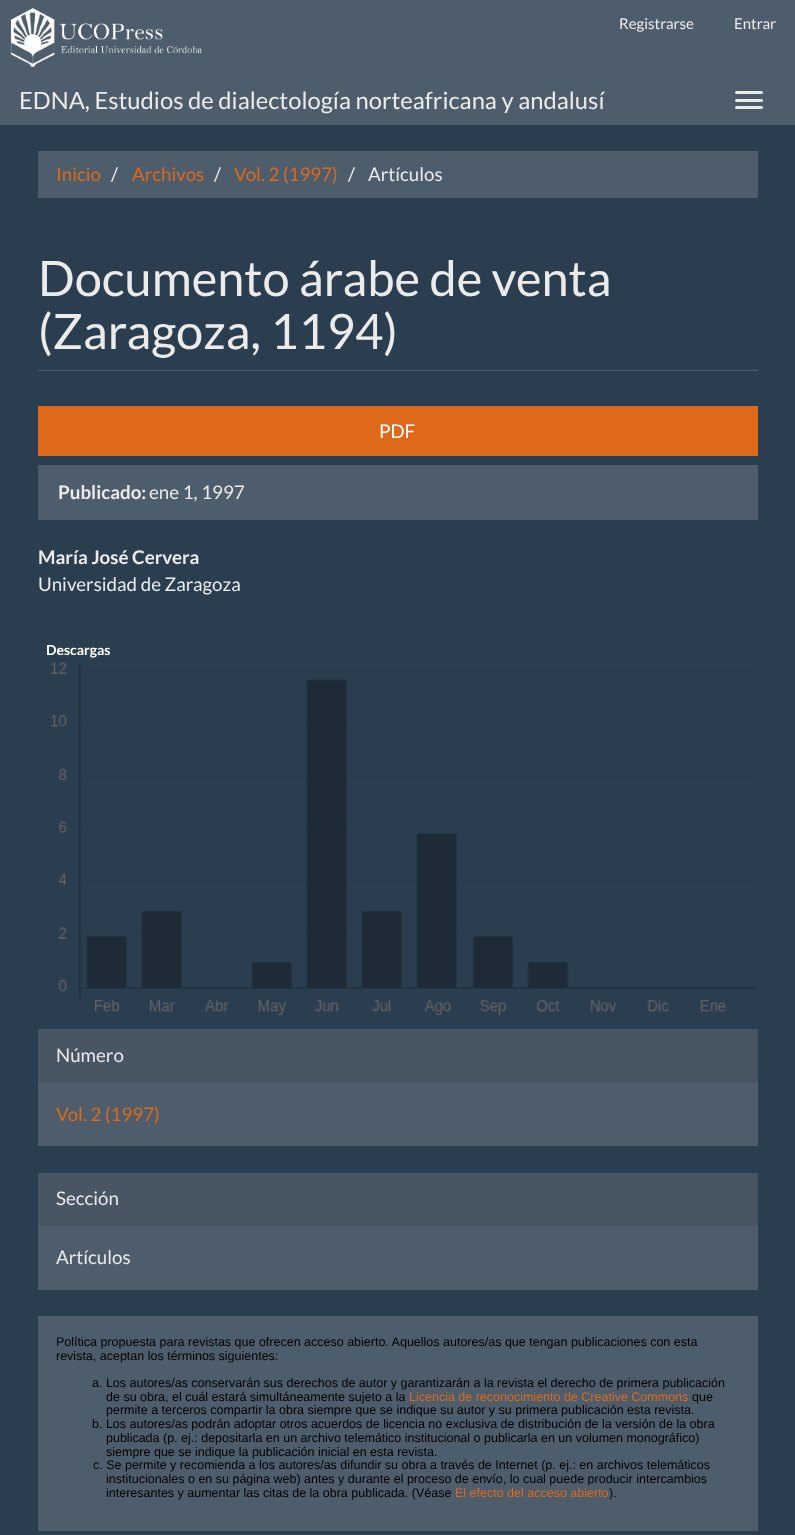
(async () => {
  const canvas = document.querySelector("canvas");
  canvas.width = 795;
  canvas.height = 1535;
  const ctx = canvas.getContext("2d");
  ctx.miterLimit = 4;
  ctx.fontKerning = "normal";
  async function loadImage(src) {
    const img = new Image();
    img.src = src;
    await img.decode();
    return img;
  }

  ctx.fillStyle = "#2b3e50";
  ctx.fillRect(0, 0, 795, 1535);
  ctx.fillStyle = "#4e5d6c";
  ctx.fillRect(0, 0, 795, 125);
  ctx.drawImage(await loadImage("img/1.png"), 10, 8, 192, 59);
  ctx.fillStyle = "#ebebeb";
  ctx.beginPath();
  ctx.roundRect(735, 91, 28, 3, 1.5);
  ctx.fill();
  ctx.beginPath();
  ctx.roundRect(735, 99, 28, 3, 1.5);
  ctx.fill();
  ctx.beginPath();
  ctx.roundRect(735, 106, 28, 3, 1.5);
  ctx.fill();
  for (const [x, y, w, h, color] of [
    [38, 151, 720, 47, "#4e5d6c"],
    [38, 370, 720, 1, "#4e5d6c"],
    [38, 406, 720, 50, "#df691a"],
    [38, 465, 720, 55, "#4e5d6c"],
  ]) {
    ctx.fillStyle = color;
    ctx.fillRect(x, y, w, h);
  }
  ctx.drawImage(await loadImage("img/2.png"), 51, 662, 707, 354);
  for (const [x, y, w, h, color] of [
    [38, 1083, 720, 63, "#4e5d6c"],
    [38, 1029, 720, 54, "#485563"],
    [38, 1226, 720, 64, "#4e5d6c"],
    [38, 1173, 720, 53, "#485563"],
    [38, 1316, 720, 215, "#4e5d6c"],
  ]) {
    ctx.fillStyle = color;
    ctx.fillRect(x, y, w, h);
  }
  ctx.font = "15px Lato";
  ctx.fillStyle = "#ebebeb";
  ctx.fillText("Registrarse", 619, 29);
  ctx.fillText("Entrar", 734, 29);
  ctx.font = "23.75px Lato";
  ctx.fillText("EDNA, Estudios de dialectología norteafricana y andalusí", 19, 109);
  ctx.font = "18.75px Lato";
  ctx.fillStyle = "#df691a";
  ctx.fillText("Inicio", 56, 181);
  ctx.fillStyle = "#ebebeb";
  ctx.fillText("/", 111, 181);
  ctx.fillStyle = "#df691a";
  ctx.fillText("Archivos", 132, 181);
  ctx.fillStyle = "#ebebeb";
  ctx.fillText("/", 214, 181);
  ctx.fillStyle = "#df691a";
  ctx.fillText("Vol. 2 (1997)", 234, 181);
  ctx.fillStyle = "#ebebeb";
  ctx.fillText("/", 348, 181);
  ctx.fillText("Artículos", 368, 181);
  ctx.font = "48.75px Lato";
  ctx.fillText("Documento árabe de venta", 38, 296);
  ctx.fillText("(Zaragoza, 1194)", 38, 349);
  ctx.font = "18.75px Lato";
  ctx.fillStyle = "#ffffff";
  ctx.fillText("PDF", 379, 438);
  ctx.font = "bold 18.75px Lato";
  ctx.fillStyle = "#ebebeb";
  ctx.fillText("Publicado:", 58, 499);
  ctx.font = "18.75px Lato";
  ctx.fillText("ene 1, 1997", 149, 499);
  ctx.font = "bold 18.75px Lato";
  ctx.fillText("María José Cervera", 38, 564);
  ctx.font = "18.75px Lato";
  ctx.fillText("Universidad de Zaragoza", 38, 591);
  ctx.font = "bold 14px Lato";
  ctx.fillStyle = "#ffffff";
  ctx.fillText("Descargas", 46, 655);
  ctx.font = "18.75px Lato";
  ctx.fillStyle = "#ebebeb";
  ctx.fillText("Número", 56, 1062);
  ctx.fillStyle = "#df691a";
  ctx.fillText("Vol. 2 (1997)", 56, 1121);
  ctx.fillStyle = "#ebebeb";
  ctx.fillText("Sección", 56, 1205);
  ctx.fillText("Artículos", 56, 1264);
  ctx.font = "12.5px Liberation Sans";
  ctx.fillStyle = "#000000";
  for (const [text, x, y] of [
    ["Política propuesta para revistas que ofrecen acceso abierto. Aquellos autores/as que tengan publicaciones con esta", 56, 1346],
    ["revista, aceptan los términos siguientes:", 56, 1360],
    ["a. Los autores/as conservarán sus derechos de autor y garantizarán a la revista el derecho de primera publicación", 92, 1387],
    ["de su obra, el cuál estará simultáneamente sujeto a la", 106, 1401],
  ]) {
    ctx.fillText(text, x, y);
  }
  ctx.fillStyle = "#df691a";
  ctx.fillText("Licencia de reconocimiento de Creative Commons", 409, 1401);
  ctx.fillStyle = "#000000";
  for (const [text, x, y] of [
    ["que", 692, 1401],
    ["permite a terceros compartir la obra siempre que se indique su autor y su primera publicación esta revista.", 106, 1414],
    ["b. Los autores/as podrán adoptar otros acuerdos de licencia no exclusiva de distribución de la versión de la obra", 92, 1428],
    ["publicada (p. ej.: depositarla en un archivo telemático institucional o publicarla en un volumen monográfico)", 106, 1442],
    ["siempre que se indique la publicación inicial en esta revista.", 106, 1456],
    ["c. Se permite y recomienda a los autores/as difundir su obra a través de Internet (p. ej.: en archivos telemáticos", 93, 1469],
    ["institucionales o en su página web) antes y durante el proceso de envío, lo cual puede producir intercambios", 106, 1483],
    ["interesantes y aumentar las citas de la obra publicada. (Véase", 106, 1497],
  ]) {
    ctx.fillText(text, x, y);
  }
  ctx.fillStyle = "#df691a";
  ctx.fillText("El efecto del acceso abierto", 455, 1497);
  ctx.fillStyle = "#000000";
  ctx.fillText(").", 609, 1497);
})();
